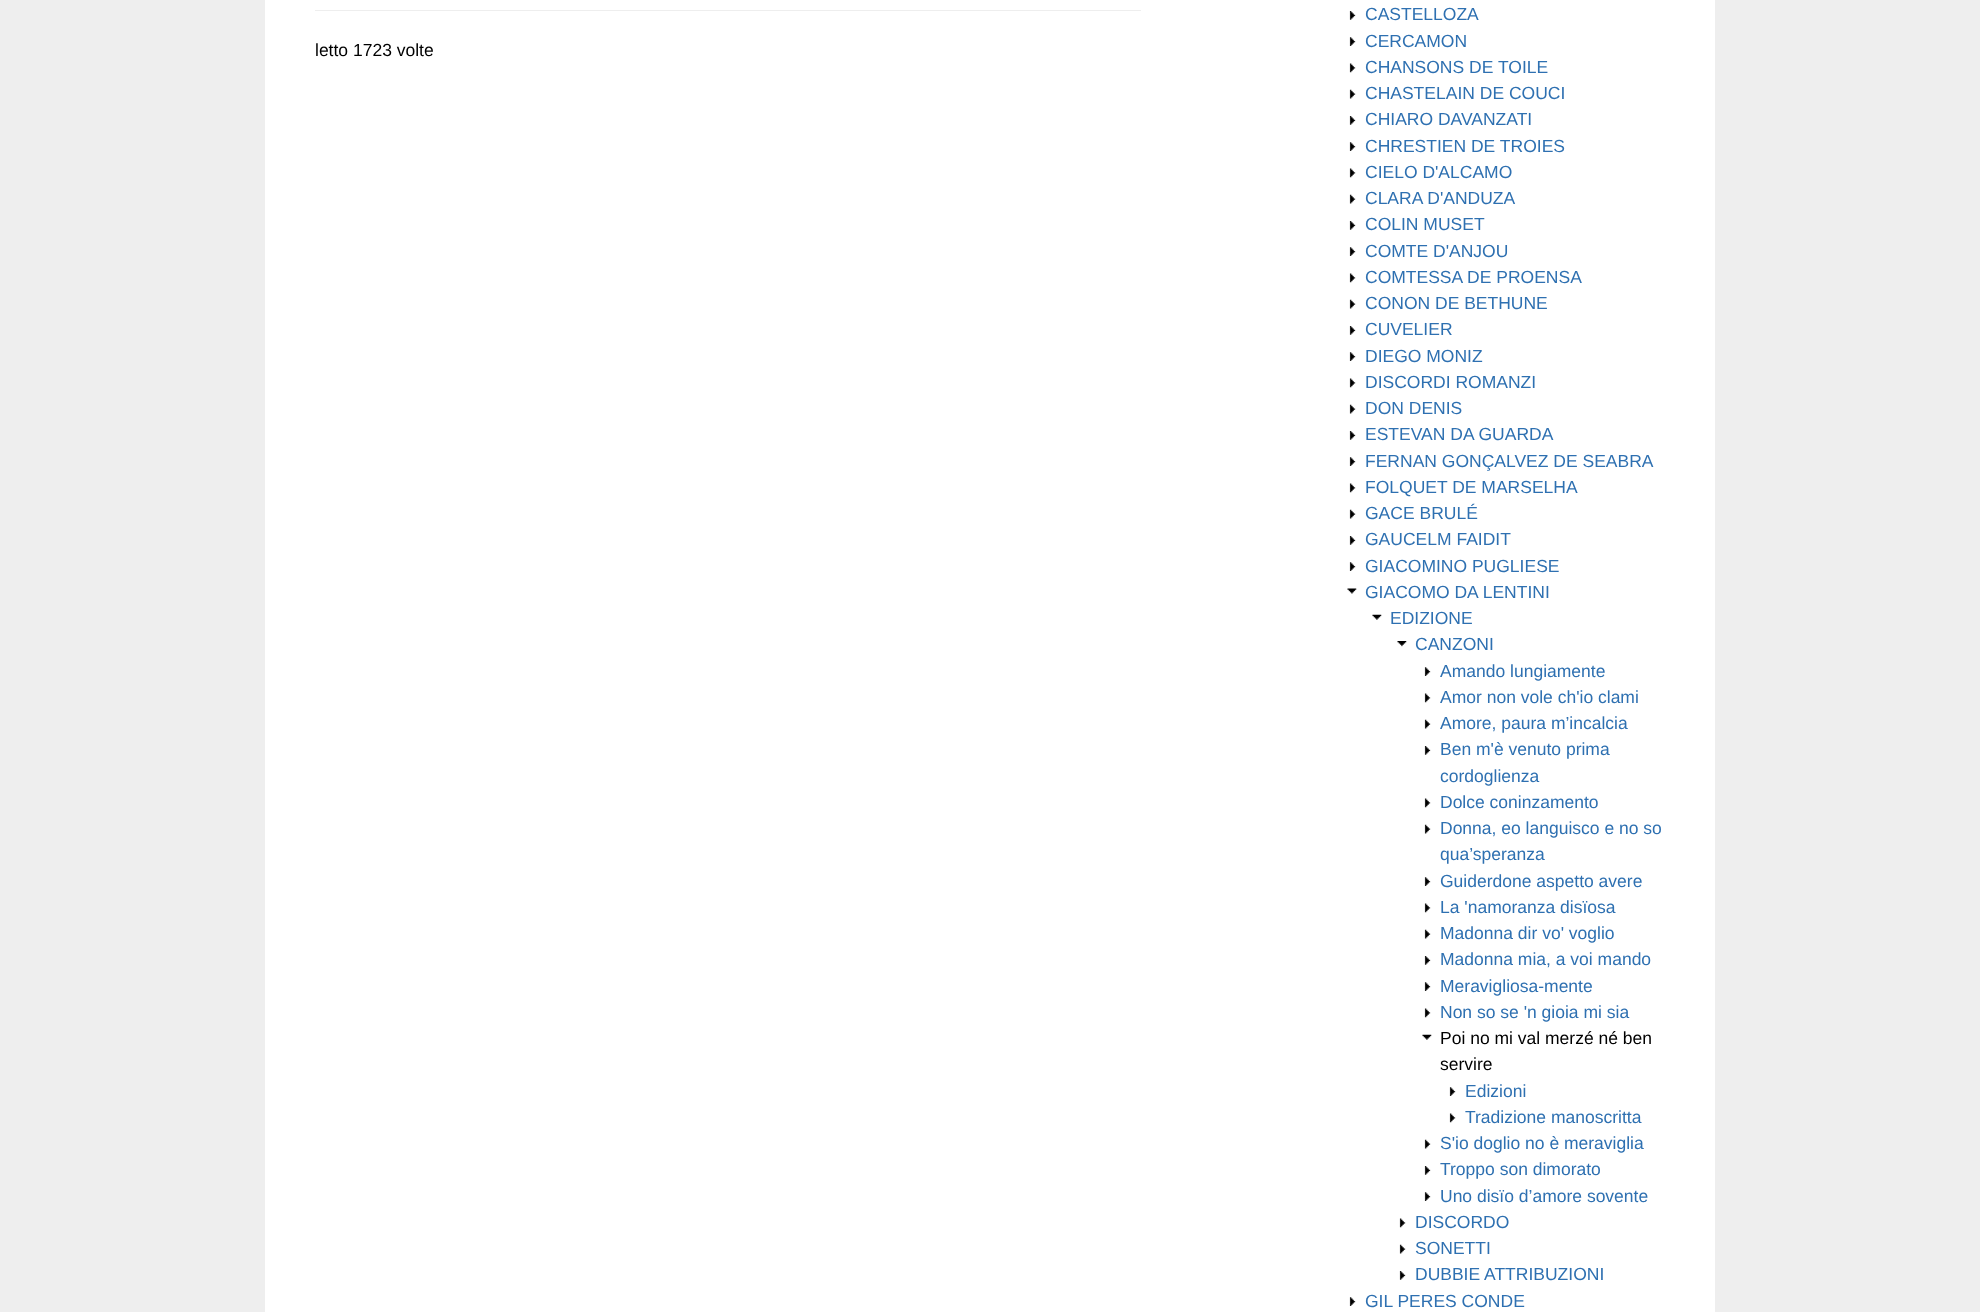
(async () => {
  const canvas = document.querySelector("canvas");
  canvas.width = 1980;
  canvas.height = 1312;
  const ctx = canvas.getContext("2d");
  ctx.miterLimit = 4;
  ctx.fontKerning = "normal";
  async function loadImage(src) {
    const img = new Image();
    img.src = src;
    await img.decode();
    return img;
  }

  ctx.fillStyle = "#eeeeee";
  ctx.fillRect(0, 0, 1980, 1312);
  ctx.fillStyle = "#ffffff";
  ctx.fillRect(265, 0, 1450, 1312);
  ctx.fillStyle = "#eeeeee";
  ctx.fillRect(315, 10, 826, 1);
  ctx.drawImage(await loadImage("img/1.png"), 1349, 11, 7, 9);
  ctx.drawImage(await loadImage("img/2.png"), 1349, 37, 7, 9);
  ctx.drawImage(await loadImage("img/3.png"), 1349, 63, 7, 10);
  ctx.drawImage(await loadImage("img/4.png"), 1349, 89, 7, 10);
  ctx.drawImage(await loadImage("img/1.png"), 1349, 116, 7, 9);
  ctx.drawImage(await loadImage("img/2.png"), 1349, 142, 7, 9);
  ctx.drawImage(await loadImage("img/3.png"), 1349, 168, 7, 10);
  ctx.drawImage(await loadImage("img/5.png"), 1349, 194, 7, 10);
  ctx.drawImage(await loadImage("img/1.png"), 1349, 221, 7, 9);
  ctx.drawImage(await loadImage("img/2.png"), 1349, 247, 7, 9);
  ctx.drawImage(await loadImage("img/3.png"), 1349, 273, 7, 10);
  ctx.drawImage(await loadImage("img/4.png"), 1349, 299, 7, 10);
  ctx.drawImage(await loadImage("img/1.png"), 1349, 326, 7, 9);
  ctx.drawImage(await loadImage("img/2.png"), 1349, 352, 7, 9);
  ctx.drawImage(await loadImage("img/3.png"), 1349, 378, 7, 10);
  ctx.drawImage(await loadImage("img/4.png"), 1349, 404, 7, 10);
  ctx.drawImage(await loadImage("img/1.png"), 1349, 431, 7, 9);
  ctx.drawImage(await loadImage("img/2.png"), 1349, 457, 7, 9);
  ctx.drawImage(await loadImage("img/3.png"), 1349, 483, 7, 10);
  ctx.drawImage(await loadImage("img/4.png"), 1349, 509, 7, 10);
  ctx.drawImage(await loadImage("img/1.png"), 1349, 536, 7, 9);
  ctx.drawImage(await loadImage("img/2.png"), 1349, 562, 7, 9);
  ctx.drawImage(await loadImage("img/6.png"), 1347, 588, 10, 6);
  ctx.drawImage(await loadImage("img/7.png"), 1372, 614, 10, 6);
  ctx.drawImage(await loadImage("img/8.png"), 1397, 641, 10, 6);
  ctx.drawImage(await loadImage("img/9.png"), 1424, 667, 7, 9);
  ctx.drawImage(await loadImage("img/10.png"), 1424, 693, 7, 10);
  ctx.drawImage(await loadImage("img/11.png"), 1424, 719, 7, 10);
  ctx.drawImage(await loadImage("img/12.png"), 1424, 746, 7, 9);
  ctx.drawImage(await loadImage("img/10.png"), 1424, 798, 7, 10);
  ctx.drawImage(await loadImage("img/11.png"), 1424, 824, 7, 10);
  ctx.drawImage(await loadImage("img/9.png"), 1424, 877, 7, 9);
  ctx.drawImage(await loadImage("img/10.png"), 1424, 903, 7, 10);
  ctx.drawImage(await loadImage("img/11.png"), 1424, 929, 7, 10);
  ctx.drawImage(await loadImage("img/12.png"), 1424, 956, 7, 9);
  ctx.drawImage(await loadImage("img/9.png"), 1424, 982, 7, 9);
  ctx.drawImage(await loadImage("img/10.png"), 1424, 1008, 7, 10);
  ctx.drawImage(await loadImage("img/7.png"), 1422, 1034, 10, 6);
  ctx.drawImage(await loadImage("img/9.png"), 1449, 1087, 7, 9);
  ctx.drawImage(await loadImage("img/10.png"), 1449, 1113, 7, 10);
  ctx.drawImage(await loadImage("img/11.png"), 1424, 1139, 7, 10);
  ctx.drawImage(await loadImage("img/12.png"), 1424, 1166, 7, 9);
  ctx.drawImage(await loadImage("img/9.png"), 1424, 1192, 7, 9);
  ctx.drawImage(await loadImage("img/13.png"), 1399, 1218, 7, 10);
  ctx.drawImage(await loadImage("img/11.png"), 1399, 1244, 7, 10);
  ctx.drawImage(await loadImage("img/12.png"), 1399, 1271, 7, 9);
  ctx.drawImage(await loadImage("img/2.png"), 1349, 1297, 7, 9);
  ctx.font = "17.5px Liberation Sans";
  ctx.fillStyle = "#000000";
  ctx.fillText("letto 1723 volte", 315, 56);
  ctx.fillStyle = "#2e70b1";
  for (const [text, x, y] of [
    ["CASTELLOZA", 1365, 20],
    ["CERCAMON", 1365, 47],
    ["CHANSONS DE TOILE", 1365, 73],
    ["CHASTELAIN DE COUCI", 1365, 99],
    ["CHIARO DAVANZATI", 1365, 125],
    ["CHRESTIEN DE TROIES", 1365, 152],
    ["CIELO D'ALCAMO", 1365, 178],
    ["CLARA D'ANDUZA", 1365, 204],
    ["COLIN MUSET", 1365, 230],
    ["COMTE D'ANJOU", 1365, 257],
    ["COMTESSA DE PROENSA", 1365, 283],
    ["CONON DE BETHUNE", 1365, 309],
    ["CUVELIER", 1365, 335],
    ["DIEGO MONIZ", 1365, 362],
    ["DISCORDI ROMANZI", 1365, 388],
    ["DON DENIS", 1365, 414],
    ["ESTEVAN DA GUARDA", 1365, 440],
    ["FERNAN GONÇALVEZ DE SEABRA", 1365, 467],
    ["FOLQUET DE MARSELHA", 1365, 493],
    ["GACE BRULÉ", 1365, 519],
    ["GAUCELM FAIDIT", 1365, 545],
    ["GIACOMINO PUGLIESE", 1365, 572],
    ["GIACOMO DA LENTINI", 1365, 598],
    ["EDIZIONE", 1390, 624],
    ["CANZONI", 1415, 650],
    ["Amando lungiamente", 1440, 677],
    ["Amor non vole ch'io clami", 1440, 703],
    ["Amore, paura m’incalcia", 1440, 729],
    ["Ben m'è venuto prima", 1440, 755],
    ["cordoglienza", 1440, 782],
    ["Dolce coninzamento", 1440, 808],
    ["Donna, eo languisco e no so", 1440, 834],
    ["qua’speranza", 1440, 860],
    ["Guiderdone aspetto avere", 1440, 887],
    ["La 'namoranza disïosa", 1440, 913],
    ["Madonna dir vo' voglio", 1440, 939],
    ["Madonna mia, a voi mando", 1440, 965],
    ["Meravigliosa-mente", 1440, 992],
    ["Non so se 'n gioia mi sia", 1440, 1018],
  ]) {
    ctx.fillText(text, x, y);
  }
  ctx.fillStyle = "#000000";
  ctx.fillText("Poi no mi val merzé né ben", 1440, 1044);
  ctx.fillText("servire", 1440, 1070);
  ctx.fillStyle = "#2e70b1";
  for (const [text, x, y] of [
    ["Edizioni", 1465, 1097],
    ["Tradizione manoscritta", 1465, 1123],
    ["S'io doglio no è meraviglia", 1440, 1149],
    ["Troppo son dimorato", 1440, 1175],
    ["Uno disïo d’amore sovente", 1440, 1202],
    ["DISCORDO", 1415, 1228],
    ["SONETTI", 1415, 1254],
    ["DUBBIE ATTRIBUZIONI", 1415, 1280],
    ["GIL PERES CONDE", 1365, 1307],
  ]) {
    ctx.fillText(text, x, y);
  }
})();
